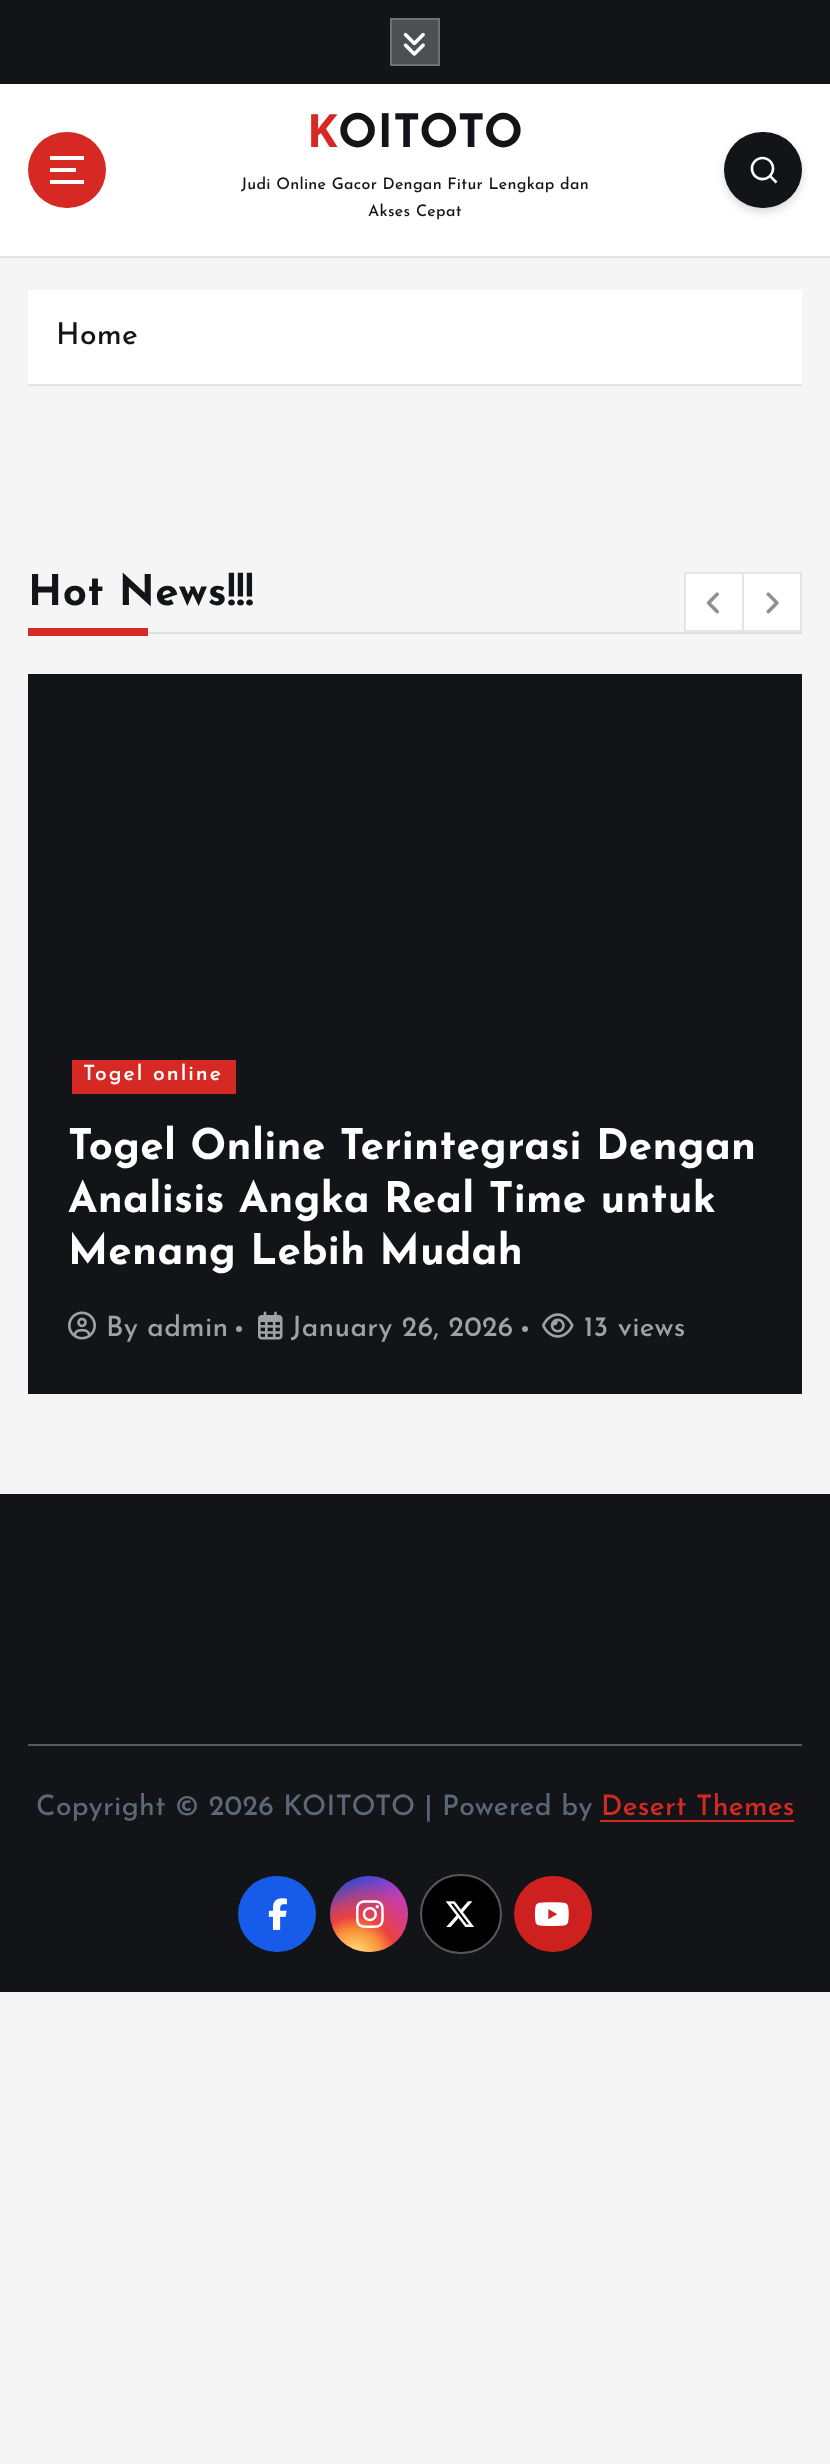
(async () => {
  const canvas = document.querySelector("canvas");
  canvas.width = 830;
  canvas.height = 2464;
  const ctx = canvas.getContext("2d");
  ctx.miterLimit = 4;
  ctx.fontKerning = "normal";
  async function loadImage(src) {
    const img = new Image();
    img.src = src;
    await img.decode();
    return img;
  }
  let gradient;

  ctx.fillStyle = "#f5f5f5";
  ctx.fillRect(0, 0, 830, 2464);
  ctx.fillStyle = "#ffffff";
  ctx.fillRect(0, 84, 830, 172);
  ctx.fillStyle = "#121418";
  ctx.fillRect(0, 0, 830, 84);
  ctx.fillStyle = "#4d4f52";
  ctx.beginPath();
  ctx.rect(391, 19, 48, 46);
  ctx.fill();
  ctx.strokeStyle = "#717275";
  ctx.lineWidth = 2;
  ctx.stroke();
  ctx.drawImage(await loadImage("img/1.png"), 403, 32, 22, 24);
  ctx.fillStyle = "#e4e4e4";
  ctx.fillRect(0, 256, 830, 2);
  ctx.fillStyle = "#d72924";
  ctx.beginPath();
  ctx.roundRect(28, 132, 78, 76, 38);
  ctx.fill();
  for (const [x, y, w, h, color] of [
    [50, 156, 34, 4, "#ffffff"],
    [50, 168, 26, 4, "#ffffff"],
    [50, 180, 34, 4, "#ffffff"],
  ]) {
    ctx.fillStyle = color;
    ctx.fillRect(x, y, w, h);
  }
  ctx.fillStyle = "rgba(0, 0, 0, 0.15)";
  ctx.filter = "blur(4px)";
  ctx.beginPath();
  ctx.roundRect(724, 136, 78, 76, 38);
  ctx.fill();
  ctx.filter = "none";
  ctx.fillStyle = "#121418";
  ctx.beginPath();
  ctx.roundRect(724, 132, 78, 76, 38);
  ctx.fill();
  ctx.drawImage(await loadImage("img/2.png"), 750, 156, 28, 28);
  for (const [x, y, w, h, color] of [
    [28, 384, 774, 2, "#e4e4e4"],
    [28, 290, 774, 94, "#ffffff"],
    [148, 632, 654, 2, "#dfdfdf"],
    [28, 628, 120, 8, "#d72924"],
  ]) {
    ctx.fillStyle = color;
    ctx.fillRect(x, y, w, h);
  }
  ctx.fillStyle = "#ffffff";
  ctx.beginPath();
  ctx.rect(685, 573, 58, 58);
  ctx.fill();
  ctx.strokeStyle = "#e5e5e5";
  ctx.stroke();
  ctx.drawImage(await loadImage("img/3.png"), 706, 592, 13, 22);
  ctx.beginPath();
  ctx.rect(743, 573, 58, 58);
  ctx.fill();
  ctx.stroke();
  ctx.drawImage(await loadImage("img/4.png"), 766, 592, 13, 22);
  ctx.fillStyle = "#121418";
  ctx.fillRect(28, 674, 774, 720);
  ctx.fillStyle = "#d72924";
  ctx.fillRect(72, 1060, 164, 34);
  ctx.drawImage(await loadImage("img/5.png"), 68, 1311, 28, 29);
  ctx.fillStyle = "#a0a1a3";
  ctx.beginPath();
  ctx.arc(239, 1329, 3, 0, Math.PI * 2);
  ctx.fill();
  ctx.drawImage(await loadImage("img/6.png"), 258, 1311, 25, 29);
  ctx.beginPath();
  ctx.arc(525, 1329, 3, 0, Math.PI * 2);
  ctx.fill();
  ctx.drawImage(await loadImage("img/7.png"), 542, 1313, 32, 25);
  for (const [x, y, w, h, color] of [
    [0, 1494, 830, 498, "#121418"],
    [28, 1744, 774, 2, "#56585a"],
    [600, 1820, 194, 2, "#d72924"],
  ]) {
    ctx.fillStyle = color;
    ctx.fillRect(x, y, w, h);
  }
  ctx.fillStyle = "#175beb";
  ctx.beginPath();
  ctx.roundRect(238, 1876, 78, 76, 38);
  ctx.fill();
  ctx.drawImage(await loadImage("img/8.png"), 268, 1898, 19, 32);
  gradient = ctx.createLinearGradient(331, 1876, 408, 1953);
  gradient.addColorStop(0.12, "#234bd7");
  gradient.addColorStop(0.58, "#c33cbe");
  ctx.fillStyle = gradient;
  ctx.beginPath();
  ctx.roundRect(330, 1876, 78, 76, 38);
  ctx.fill();
  gradient = ctx.createRadialGradient(355, 1957, 0, 355, 1957, 96);
  gradient.addColorStop(0, "#ffe17d");
  gradient.addColorStop(0.1, "#ffcd69");
  gradient.addColorStop(0.28, "#fa9137");
  gradient.addColorStop(0.42, "#eb4141");
  gradient.addColorStop(0.82, "rgba(235, 65, 65, 0)");
  ctx.fillStyle = gradient;
  ctx.beginPath();
  ctx.roundRect(330, 1876, 78, 76, 38);
  ctx.fill();
  ctx.drawImage(await loadImage("img/9.png"), 356, 1900, 28, 28);
  ctx.fillStyle = "#000000";
  ctx.beginPath();
  ctx.roundRect(422, 1876, 78, 76, 38);
  ctx.fill();
  ctx.drawImage(await loadImage("img/10.png"), 445, 1901, 29, 26);
  ctx.beginPath();
  ctx.roundRect(421, 1875, 80, 78, 39);
  ctx.strokeStyle = "rgba(189, 189, 189, 0.4)";
  ctx.stroke();
  ctx.fillStyle = "#cd201f";
  ctx.beginPath();
  ctx.roundRect(514, 1876, 78, 76, 38);
  ctx.fill();
  ctx.drawImage(await loadImage("img/11.png"), 534, 1902, 35, 24);
  ctx.letterSpacing = "0.3px";
  ctx.font = "bold 46px Noto Sans";
  ctx.fillStyle = "#d72924";
  ctx.fillText("K", 307, 147);
  ctx.font = "bold 46px Josefin Sans";
  ctx.fillStyle = "#121418";
  ctx.fillText("OITOTO", 338, 147);
  ctx.font = "500 16px Josefin Sans";
  ctx.fillText("Judi Online Gacor Dengan Fitur Lengkap dan", 241, 189);
  ctx.fillText("Akses Cepat", 368, 216);
  ctx.font = "500 30px Josefin Sans";
  ctx.fillText("Home", 56, 344);
  ctx.letterSpacing = "0.5px";
  ctx.font = "bold 42.25px Josefin Sans";
  ctx.fillText("Hot News!!!", 28, 605);
  ctx.letterSpacing = "2px";
  ctx.font = "600 21px Josefin Sans";
  ctx.fillStyle = "#ffffff";
  ctx.fillText("Togel online", 83, 1080);
  ctx.letterSpacing = "0.3px";
  ctx.font = "bold 42.25px Josefin Sans";
  for (const [text, x, y] of [
    ["Togel Online Terintegrasi Dengan", 68, 1159],
    ["Analisis Angka Real Time untuk", 68, 1212],
    ["Menang Lebih Mudah", 68, 1264],
  ]) {
    ctx.fillText(text, x, y);
  }
  ctx.font = "500 28px Josefin Sans";
  ctx.fillStyle = "#a0a1a3";
  for (const [text, x, y] of [
    ["By admin", 106, 1336],
    ["January 26, 2026", 291, 1336],
    ["13 views", 584, 1336],
  ]) {
    ctx.fillText(text, x, y);
  }
  ctx.font = "500 28.2px Josefin Sans";
  ctx.fillStyle = "#5c6777";
  ctx.fillText("Copyright © 2026 KOITOTO | Powered by", 36, 1815);
  ctx.fillStyle = "#d72924";
  ctx.fillText("Desert Themes", 601, 1815);
})();
